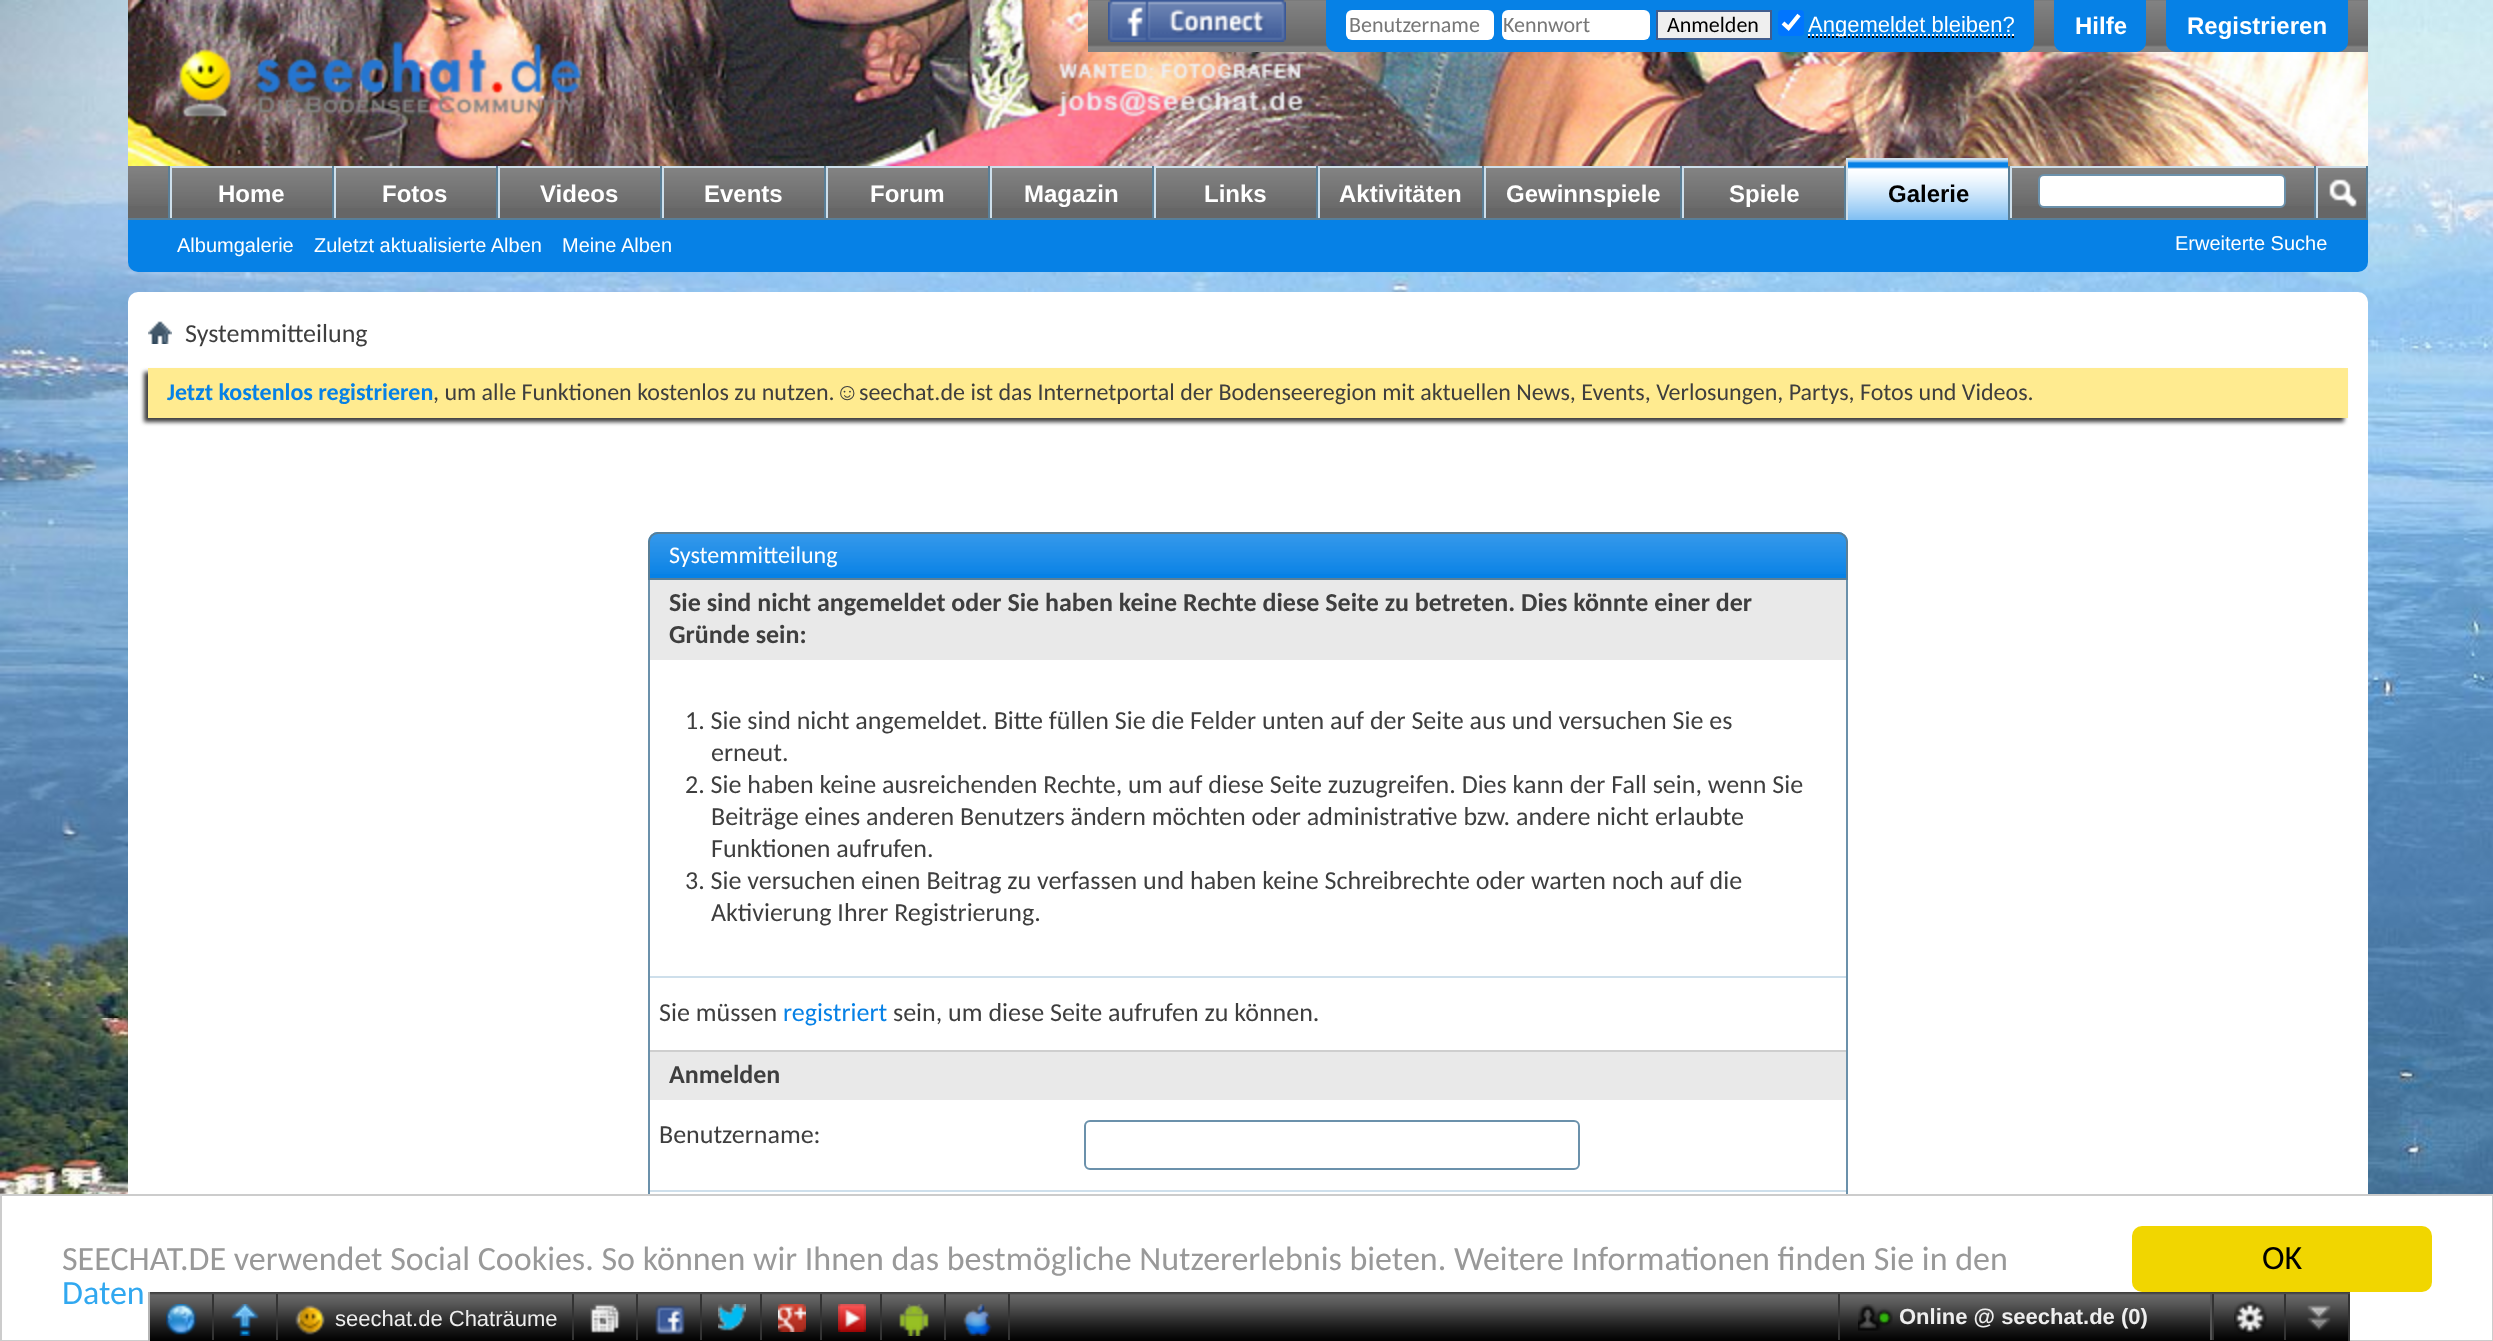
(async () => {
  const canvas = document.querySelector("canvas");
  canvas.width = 2493;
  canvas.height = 1341;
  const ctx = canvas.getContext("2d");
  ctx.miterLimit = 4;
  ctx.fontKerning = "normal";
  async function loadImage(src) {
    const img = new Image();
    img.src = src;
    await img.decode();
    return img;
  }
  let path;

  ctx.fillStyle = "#ffffff";
  ctx.fillRect(0, 0, 2493, 1341);
  ctx.drawImage(await loadImage("img/1.png"), 0, 0, 2493, 1194);
  ctx.drawImage(await loadImage("img/2.png"), 128, 0, 2240, 166);
  ctx.fillStyle = "#666666";
  ctx.fillRect(1088, 0, 1280, 52);
  ctx.drawImage(await loadImage("img/3.png"), 1088, 0, 1280, 52);
  ctx.drawImage(await loadImage("img/4.png"), 1108, 0, 178, 42);
  ctx.fillStyle = "#0681e6";
  ctx.beginPath();
  ctx.roundRect(1326, 0, 708, 52, [0, 0, 10, 10]);
  ctx.fill();
  ctx.fillStyle = "#ffffff";
  ctx.beginPath();
  ctx.roundRect(1346, 10, 148, 30, 6);
  ctx.fill();
  ctx.beginPath();
  ctx.roundRect(1502, 10, 148, 30, 6);
  ctx.fill();
  ctx.fillStyle = "#efefef";
  ctx.beginPath();
  ctx.rect(1657, 11, 114, 28);
  ctx.fill();
  ctx.strokeStyle = "#415d8d";
  ctx.lineWidth = 2;
  ctx.stroke();
  ctx.fillStyle = "#0075ff";
  ctx.beginPath();
  ctx.roundRect(1778, 10, 26, 26, 4);
  ctx.fill();
  path = new Path2D("M1783 23L1788.5 28L1799 15");
  ctx.strokeStyle = "#ffffff";
  ctx.lineWidth = 4.2;
  ctx.stroke(path);
  path = new Path2D("M1808 37H2014");
  ctx.strokeStyle = "#000000";
  ctx.lineWidth = 2;
  ctx.setLineDash([2, 2]);
  ctx.stroke(path);
  path = new Path2D("M1808 35H2015");
  ctx.strokeStyle = "#ffffff";
  ctx.stroke(path);
  ctx.fillStyle = "#0681e6";
  ctx.beginPath();
  ctx.roundRect(2054, 0, 92, 52, [0, 0, 10, 10]);
  ctx.fill();
  ctx.beginPath();
  ctx.roundRect(2166, 0, 182, 52, [0, 0, 10, 10]);
  ctx.fill();
  ctx.beginPath();
  ctx.roundRect(128, 166, 2240, 106, [0, 0, 10, 10]);
  ctx.fill();
  ctx.fillStyle = "#666666";
  ctx.fillRect(128, 166, 2238, 52);
  ctx.drawImage(await loadImage("img/5.png"), 128, 166, 2238, 40);
  for (const [x, y, w, h, color] of [
    [332, 166, 2, 54, "#5a7f97"],
    [168, 166, 2, 54, "#5a7f97"],
    [172, 168, 160, 38, "#666666"],
  ]) {
    ctx.fillStyle = color;
    ctx.fillRect(x, y, w, h);
  }
  ctx.drawImage(await loadImage("img/6.png"), 172, 168, 160, 40);
  for (const [x, y, w, h, color] of [
    [170, 166, 162, 2, "#cedfeb"],
    [170, 166, 2, 54, "#cedfeb"],
    [496, 166, 2, 54, "#5a7f97"],
    [336, 168, 160, 38, "#666666"],
  ]) {
    ctx.fillStyle = color;
    ctx.fillRect(x, y, w, h);
  }
  ctx.drawImage(await loadImage("img/6.png"), 336, 168, 160, 40);
  for (const [x, y, w, h, color] of [
    [334, 166, 162, 2, "#cedfeb"],
    [334, 166, 2, 54, "#cedfeb"],
    [660, 166, 2, 54, "#5a7f97"],
    [500, 168, 160, 38, "#666666"],
  ]) {
    ctx.fillStyle = color;
    ctx.fillRect(x, y, w, h);
  }
  ctx.drawImage(await loadImage("img/6.png"), 500, 168, 160, 40);
  for (const [x, y, w, h, color] of [
    [498, 166, 162, 2, "#cedfeb"],
    [498, 166, 2, 54, "#cedfeb"],
    [824, 166, 2, 54, "#5a7f97"],
    [664, 168, 160, 38, "#666666"],
  ]) {
    ctx.fillStyle = color;
    ctx.fillRect(x, y, w, h);
  }
  ctx.drawImage(await loadImage("img/6.png"), 664, 168, 160, 40);
  for (const [x, y, w, h, color] of [
    [662, 166, 162, 2, "#cedfeb"],
    [662, 166, 2, 54, "#cedfeb"],
    [988, 166, 2, 54, "#5a7f97"],
    [828, 168, 160, 38, "#666666"],
  ]) {
    ctx.fillStyle = color;
    ctx.fillRect(x, y, w, h);
  }
  ctx.drawImage(await loadImage("img/6.png"), 828, 168, 160, 40);
  for (const [x, y, w, h, color] of [
    [826, 166, 162, 2, "#cedfeb"],
    [826, 166, 2, 54, "#cedfeb"],
    [1152, 166, 2, 54, "#5a7f97"],
    [992, 168, 160, 38, "#666666"],
  ]) {
    ctx.fillStyle = color;
    ctx.fillRect(x, y, w, h);
  }
  ctx.drawImage(await loadImage("img/6.png"), 992, 168, 160, 40);
  for (const [x, y, w, h, color] of [
    [990, 166, 162, 2, "#cedfeb"],
    [990, 166, 2, 54, "#cedfeb"],
    [1316, 166, 2, 54, "#5a7f97"],
    [1156, 168, 160, 38, "#666666"],
  ]) {
    ctx.fillStyle = color;
    ctx.fillRect(x, y, w, h);
  }
  ctx.drawImage(await loadImage("img/6.png"), 1156, 168, 160, 40);
  for (const [x, y, w, h, color] of [
    [1154, 166, 162, 2, "#cedfeb"],
    [1154, 166, 2, 54, "#cedfeb"],
    [1482, 166, 2, 54, "#5a7f97"],
    [1320, 168, 162, 38, "#666666"],
  ]) {
    ctx.fillStyle = color;
    ctx.fillRect(x, y, w, h);
  }
  ctx.drawImage(await loadImage("img/7.png"), 1320, 168, 162, 40);
  for (const [x, y, w, h, color] of [
    [1318, 166, 164, 2, "#cedfeb"],
    [1318, 166, 2, 54, "#cedfeb"],
    [1680, 166, 2, 54, "#5a7f97"],
    [1486, 168, 194, 38, "#666666"],
  ]) {
    ctx.fillStyle = color;
    ctx.fillRect(x, y, w, h);
  }
  ctx.drawImage(await loadImage("img/8.png"), 1486, 168, 194, 40);
  for (const [x, y, w, h, color] of [
    [1484, 166, 196, 2, "#cedfeb"],
    [1484, 166, 2, 54, "#cedfeb"],
    [1844, 166, 2, 54, "#5a7f97"],
    [1684, 168, 160, 38, "#666666"],
  ]) {
    ctx.fillStyle = color;
    ctx.fillRect(x, y, w, h);
  }
  ctx.drawImage(await loadImage("img/6.png"), 1684, 168, 160, 40);
  for (const [x, y, w, h, color] of [
    [1682, 166, 162, 2, "#cedfeb"],
    [1682, 166, 2, 54, "#cedfeb"],
    [2008, 166, 2, 52, "#5a7f97"],
    [128, 218, 2240, 2, "#5a7f97"],
    [1848, 160, 160, 60, "#0681e6"],
  ]) {
    ctx.fillStyle = color;
    ctx.fillRect(x, y, w, h);
  }
  ctx.drawImage(await loadImage("img/9.png"), 1848, 160, 160, 60);
  for (const [x, y, w, h, color] of [
    [1846, 158, 162, 2, "#cedfeb"],
    [1846, 158, 2, 62, "#cedfeb"],
    [2010, 166, 304, 2, "#cedfeb"],
    [2010, 166, 2, 52, "#cedfeb"],
  ]) {
    ctx.fillStyle = color;
    ctx.fillRect(x, y, w, h);
  }
  ctx.fillStyle = "#ffffff";
  ctx.beginPath();
  ctx.roundRect(2039, 175, 246, 32, 5);
  ctx.fill();
  ctx.strokeStyle = "#6b91ab";
  ctx.setLineDash([]);
  ctx.stroke();
  for (const [x, y, w, h, color] of [
    [2366, 166, 2, 52, "#5a7f97"],
    [2314, 166, 2, 52, "#5a7f97"],
    [2316, 166, 50, 2, "#cedfeb"],
    [2316, 166, 2, 52, "#cedfeb"],
  ]) {
    ctx.fillStyle = color;
    ctx.fillRect(x, y, w, h);
  }
  ctx.drawImage(await loadImage("img/10.png"), 2329, 179, 28, 29);
  ctx.drawImage(await loadImage("img/11.png"), 1057, 63, 246, 54);
  ctx.fillStyle = "#ffffff";
  ctx.beginPath();
  ctx.roundRect(128, 292, 2240, 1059, 10);
  ctx.fill();
  ctx.drawImage(await loadImage("img/12.png"), 148, 321, 24, 23);
  ctx.fillStyle = "#3e3e3e";
  ctx.filter = "blur(2px)";
  ctx.beginPath();
  ctx.rect(144, 372, 2200, 50);
  ctx.fill();
  ctx.filter = "none";
  ctx.fillStyle = "#ffeb90";
  ctx.fillRect(148, 368, 2200, 50);
  ctx.fillStyle = "#0681e6";
  ctx.beginPath();
  ctx.roundRect(648, 532, 1200, 48, [10, 10, 0, 0]);
  ctx.fill();
  ctx.drawImage(await loadImage("img/13.png"), 648, 534, 1200, 40);
  ctx.beginPath();
  ctx.roundRect(649, 533, 1198, 46, [9, 9, 0, 0]);
  ctx.strokeStyle = "#5a7f97";
  ctx.stroke();
  for (const [x, y, w, h, color] of [
    [1846, 580, 2, 614, "#6b91ab"],
    [648, 580, 2, 614, "#6b91ab"],
    [650, 580, 1196, 80, "#e9e9e9"],
    [650, 976, 1196, 2, "#cedfeb"],
    [650, 1052, 1196, 48, "#e9e9e9"],
    [650, 1050, 1196, 2, "#cecece"],
  ]) {
    ctx.fillStyle = color;
    ctx.fillRect(x, y, w, h);
  }
  ctx.beginPath();
  ctx.roundRect(1085, 1121, 494, 48, 5);
  ctx.strokeStyle = "#6b91ab";
  ctx.stroke();
  ctx.fillStyle = "#cedfeb";
  ctx.fillRect(650, 1190, 1196, 2);
  ctx.strokeStyle = "#cccccc";
  ctx.strokeRect(1, 1195, 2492, 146);
  ctx.fillStyle = "#f1d600";
  ctx.beginPath();
  ctx.roundRect(2132, 1226, 300, 66, 10);
  ctx.fill();
  ctx.drawImage(await loadImage("img/14.png"), 150, 1292, 2200, 49);
  ctx.fillStyle = "#b5b5b5";
  ctx.fillRect(148, 1292, 2, 49);
  ctx.fillStyle = "#333333";
  ctx.fillRect(212, 1294, 2, 46);
  ctx.drawImage(await loadImage("img/15.png"), 166, 1304, 31, 31);
  ctx.fillRect(276, 1294, 2, 46);
  ctx.drawImage(await loadImage("img/16.png"), 231, 1304, 28, 32);
  ctx.fillRect(572, 1294, 2, 46);
  ctx.drawImage(await loadImage("img/17.png"), 295, 1305, 30, 30);
  ctx.fillRect(636, 1294, 2, 46);
  ctx.drawImage(await loadImage("img/18.png"), 590, 1304, 31, 29);
  ctx.fillRect(700, 1294, 2, 46);
  ctx.drawImage(await loadImage("img/19.png"), 655, 1305, 30, 30);
  ctx.fillRect(760, 1294, 2, 46);
  ctx.drawImage(await loadImage("img/20.png"), 718, 1304, 28, 27);
  ctx.fillRect(820, 1294, 2, 46);
  ctx.drawImage(await loadImage("img/21.png"), 778, 1304, 28, 28);
  ctx.fillRect(880, 1294, 2, 46);
  ctx.drawImage(await loadImage("img/22.png"), 838, 1304, 28, 28);
  ctx.fillRect(944, 1294, 2, 46);
  ctx.drawImage(await loadImage("img/23.png"), 899, 1304, 30, 32);
  ctx.fillRect(1008, 1294, 2, 46);
  ctx.drawImage(await loadImage("img/24.png"), 963, 1304, 29, 32);
  ctx.fillStyle = "#555555";
  ctx.fillRect(2210, 1294, 2, 46);
  ctx.fillStyle = "#333333";
  ctx.fillRect(1838, 1294, 2, 46);
  ctx.drawImage(await loadImage("img/25.png"), 1858, 1304, 35, 27);
  ctx.drawImage(await loadImage("img/26.png"), 2234, 1300, 33, 34);
  ctx.fillRect(2284, 1294, 2, 46);
  ctx.fillRect(2212, 1294, 2, 46);
  ctx.drawImage(await loadImage("img/27.png"), 2307, 1305, 24, 26);
  ctx.fillRect(2348, 1294, 2, 47);
  ctx.font = "22px Carlito";
  ctx.fillStyle = "#777777";
  ctx.fillText("Benutzername", 1349, 32);
  ctx.fillText("Kennwort", 1503, 32);
  ctx.fillStyle = "#000000";
  ctx.fillText("Anmelden", 1667, 32);
  ctx.font = "22px Liberation Sans";
  ctx.fillStyle = "#ffffff";
  ctx.fillText("Angemeldet bleiben?", 1808, 32);
  ctx.font = "bold 24px Liberation Sans";
  for (const [text, x, y] of [
    ["Hilfe", 2075, 34],
    ["Registrieren", 2187, 34],
    ["Home", 218, 202],
    ["Fotos", 382, 202],
    ["Videos", 540, 202],
    ["Events", 704, 202],
    ["Forum", 870, 202],
    ["Magazin", 1024, 202],
    ["Links", 1204, 202],
    ["Aktivitäten", 1339, 202],
    ["Gewinnspiele", 1506, 202],
    ["Spiele", 1729, 202],
  ]) {
    ctx.fillText(text, x, y);
  }
  ctx.fillStyle = "#000000";
  ctx.fillText("Galerie", 1888, 202);
  ctx.font = "20px Liberation Sans";
  ctx.fillStyle = "#ffffff";
  for (const [text, x, y] of [
    ["Albumgalerie", 177, 252],
    ["Zuletzt aktualisierte Alben", 314, 252],
    ["Meine Alben", 562, 252],
    ["Erweiterte Suche", 2175, 250],
  ]) {
    ctx.fillText(text, x, y);
  }
  ctx.font = "26px Carlito";
  ctx.fillStyle = "#3e3e3e";
  ctx.fillText("Systemmitteilung", 185, 342);
  ctx.font = "bold 24px Carlito";
  ctx.fillStyle = "#0681e6";
  ctx.fillText("Jetzt kostenlos registrieren", 167, 400);
  ctx.font = "24px Carlito";
  ctx.fillStyle = "#3e3e3e";
  ctx.fillText(", um alle Funktionen kostenlos zu nutzen.", 433, 400);
  ctx.font = "24px Liberation Sans";
  ctx.fillText("☺", 835, 400);
  ctx.font = "24px Carlito";
  ctx.fillText("seechat.de ist das Internetportal der Bodenseeregion mit aktuellen News, Events, Verlosungen, Partys, Fotos und Videos.", 859, 400);
  ctx.fillStyle = "#ffffff";
  ctx.fillText("Systemmitteilung", 669, 563);
  ctx.font = "bold 26px Carlito";
  ctx.fillStyle = "#3e3e3e";
  ctx.fillText("Sie sind nicht angemeldet oder Sie haben keine Rechte diese Seite zu betreten. Dies könnte einer der", 669, 611);
  ctx.fillText("Gründe sein:", 669, 643);
  ctx.font = "26px Carlito";
  for (const [text, x, y] of [
    ["1. Sie sind nicht angemeldet. Bitte füllen Sie die Felder unten auf der Seite aus und versuchen Sie es", 685, 729],
    ["erneut.", 711, 761],
    ["2. Sie haben keine ausreichenden Rechte, um auf diese Seite zuzugreifen. Dies kann der Fall sein, wenn Sie", 685, 793],
    ["Beiträge eines anderen Benutzers ändern möchten oder administrative bzw. andere nicht erlaubte", 711, 825],
    ["Funktionen aufrufen.", 711, 857],
    ["3. Sie versuchen einen Beitrag zu verfassen und haben keine Schreibrechte oder warten noch auf die", 685, 889],
    ["Aktivierung Ihrer Registrierung.", 711, 921],
    ["Sie müssen", 659, 1021],
  ]) {
    ctx.fillText(text, x, y);
  }
  ctx.fillStyle = "#0681e6";
  ctx.fillText("registriert", 783, 1021);
  ctx.fillStyle = "#3e3e3e";
  ctx.fillText("sein, um diese Seite aufrufen zu können.", 893, 1021);
  ctx.font = "bold 26px Carlito";
  ctx.fillText("Anmelden", 669, 1083);
  ctx.font = "26px Carlito";
  ctx.fillText("Benutzername:", 659, 1143);
  ctx.font = "34px Carlito";
  ctx.fillStyle = "#999999";
  ctx.fillText("SEECHAT.DE verwendet Social Cookies. So können wir Ihnen das bestmögliche Nutzererlebnis bieten. Weitere Informationen finden Sie in den", 62, 1270);
  ctx.fillStyle = "#31a8f0";
  ctx.fillText("Daten", 62, 1304);
  ctx.fillStyle = "#000000";
  ctx.fillText("OK", 2262, 1269);
  ctx.font = "22px Liberation Sans";
  ctx.fillStyle = "#eeeeee";
  ctx.fillText("seechat.de Chaträume", 335, 1326);
  ctx.font = "bold 22px Liberation Sans";
  ctx.fillText("Online @ seechat.de (0)", 1899, 1324);
})();
